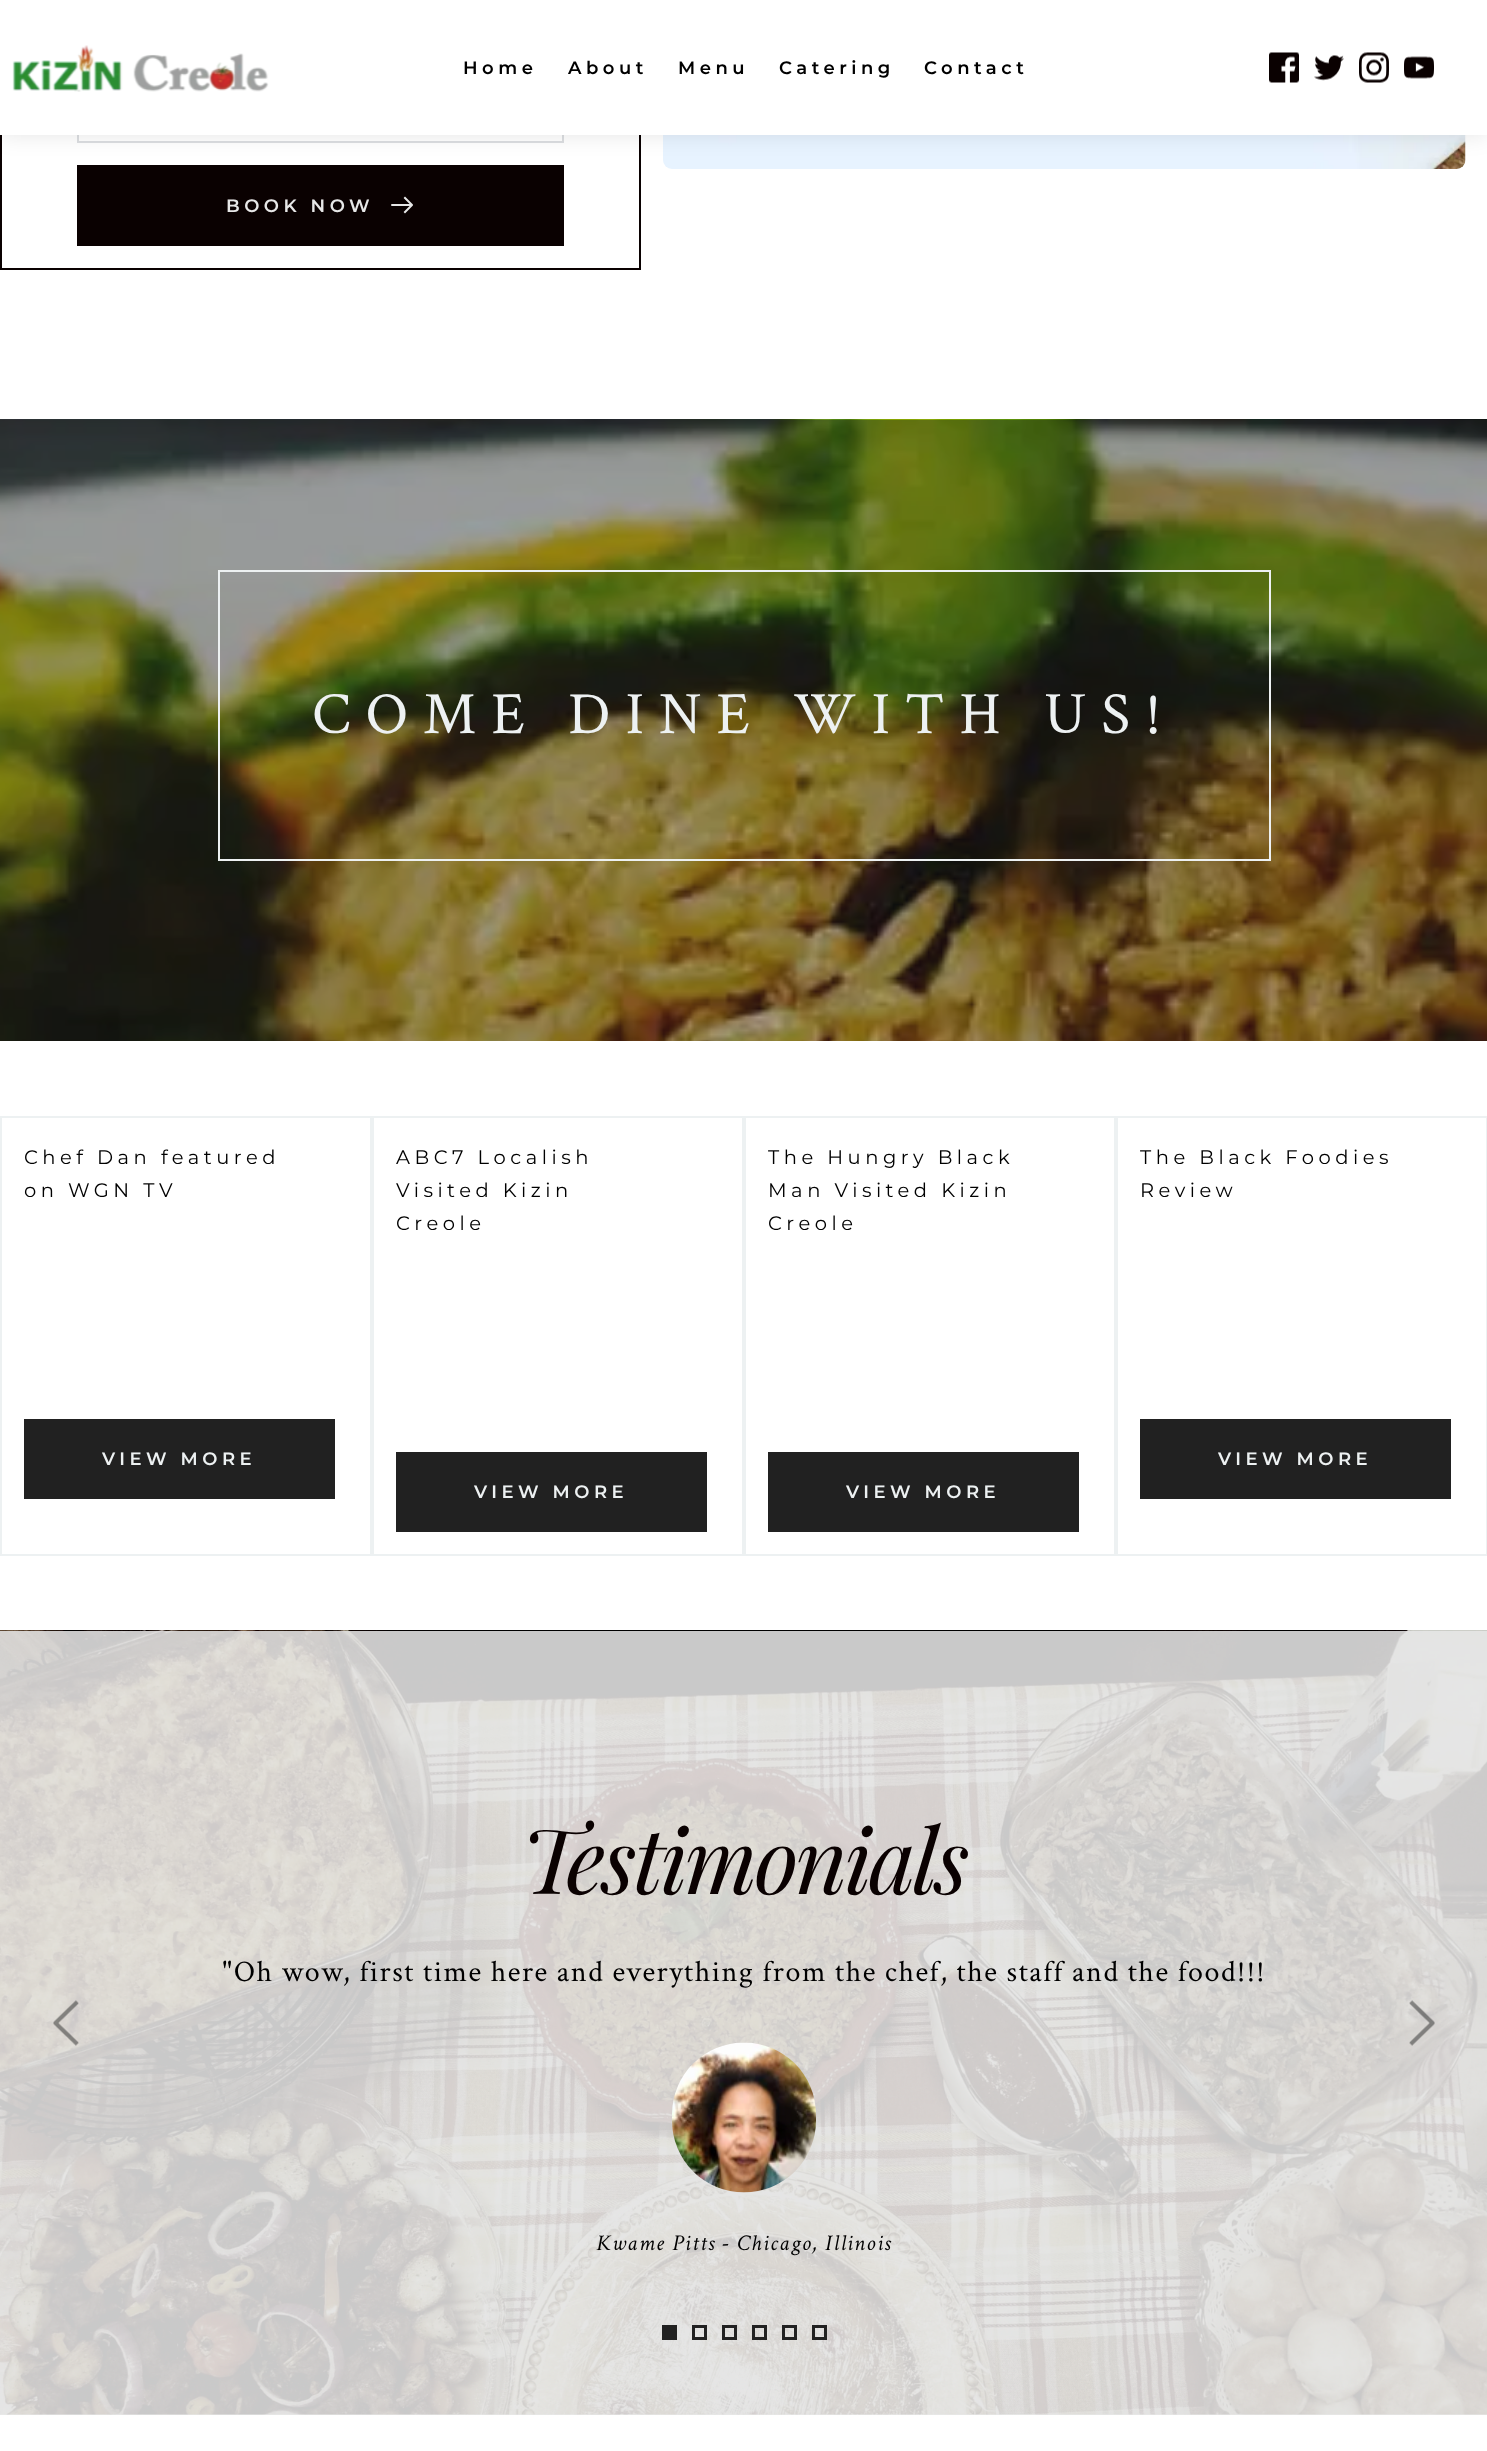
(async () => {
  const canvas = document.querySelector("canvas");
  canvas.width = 1487;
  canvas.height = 2451;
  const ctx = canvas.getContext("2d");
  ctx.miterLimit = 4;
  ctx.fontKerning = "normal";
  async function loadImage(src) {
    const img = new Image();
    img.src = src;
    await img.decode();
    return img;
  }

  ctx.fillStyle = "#ffffff";
  ctx.fillRect(0, 0, 1487, 2451);
  ctx.fillStyle = "#eaeaea";
  ctx.fillRect(0, 2414, 1487, 1);
  ctx.drawImage(await loadImage("img/6.png"), 663, 135, 803, 34);
  ctx.strokeStyle = "#0a0101";
  ctx.lineWidth = 2;
  ctx.strokeRect(1, -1, 639, 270);
  ctx.strokeStyle = "#dcdee1";
  ctx.strokeRect(78, -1, 485, 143);
  ctx.fillStyle = "#0a0101";
  ctx.fillRect(77, 165, 487, 81);
  ctx.fillStyle = "rgba(0, 0, 0, 0.1)";
  ctx.filter = "blur(11px)";
  ctx.beginPath();
  ctx.rect(0, 0, 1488, 135);
  ctx.fill();
  ctx.filter = "none";
  ctx.fillStyle = "#ffffff";
  ctx.fillRect(0, 0, 1487, 135);
  ctx.drawImage(await loadImage("img/1.png"), 12, 45, 257, 47);
  ctx.drawImage(await loadImage("img/2.png"), 1269, 52, 30, 31);
  ctx.drawImage(await loadImage("img/3.png"), 1314, 55, 30, 26);
  ctx.drawImage(await loadImage("img/4.png"), 1359, 52, 30, 31);
  ctx.drawImage(await loadImage("img/5.png"), 1404, 56, 30, 23);
  ctx.drawImage(await loadImage("img/7.png"), 391, 196, 22, 18);
  ctx.drawImage(await loadImage("img/8.png"), 0, 419, 1487, 622);
  ctx.strokeStyle = "#edf1f2";
  ctx.strokeRect(219, 571, 1051, 289);
  ctx.strokeRect(1, 1117, 370, 438);
  ctx.fillStyle = "#212121";
  ctx.fillRect(24, 1419, 311, 80);
  ctx.strokeRect(373, 1117, 370, 438);
  ctx.fillRect(396, 1452, 311, 80);
  ctx.strokeRect(745, 1117, 370, 438);
  ctx.fillRect(768, 1452, 311, 80);
  ctx.strokeRect(1117, 1117, 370, 438);
  ctx.fillRect(1140, 1419, 311, 80);
  ctx.drawImage(await loadImage("img/10.png"), 0, 1630, 1487, 785);
  ctx.drawImage(await loadImage("img/9.png"), 53, 2000, 26, 46);
  ctx.drawImage(await loadImage("img/11.png"), 672, 2042, 144, 151);
  ctx.drawImage(await loadImage("img/12.png"), 1409, 2000, 26, 46);
  ctx.fillRect(662, 2325, 15, 15);
  ctx.strokeStyle = "#212121";
  ctx.lineWidth = 3;
  ctx.strokeRect(693.5, 2326.5, 12, 12);
  ctx.strokeRect(723.5, 2326.5, 12, 12);
  ctx.strokeRect(753.5, 2326.5, 12, 12);
  ctx.strokeRect(783.5, 2326.5, 12, 12);
  ctx.strokeRect(813.5, 2326.5, 12, 12);
  ctx.letterSpacing = "4.5px";
  ctx.font = "100 18px Montserrat";
  ctx.fillStyle = "#000000";
  for (const [text, x, y] of [
    ["Home", 463, 74],
    ["About", 568, 74],
    ["Menu", 678, 74],
    ["Catering", 779, 74],
    ["Contact", 924, 74],
  ]) {
    ctx.fillText(text, x, y);
  }
  ctx.fillStyle = "#e7e7e7";
  ctx.fillText("BOOK NOW", 226, 212);
  ctx.letterSpacing = "15px";
  ctx.font = "60px Crimson Text";
  ctx.fillStyle = "#edf1f2";
  ctx.fillText("COME DINE WITH US!", 312, 733);
  ctx.letterSpacing = "4.5px";
  ctx.font = "100 19.5px 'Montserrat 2'";
  ctx.fillStyle = "#000000";
  ctx.fillText("Chef Dan featured", 24, 1164);
  ctx.fillText("on WGN TV", 24, 1197);
  ctx.font = "100 18px Montserrat";
  ctx.fillStyle = "#edf1f2";
  ctx.fillText("VIEW MORE", 102, 1465);
  ctx.font = "100 19.5px 'Montserrat 2'";
  ctx.fillStyle = "#000000";
  for (const [text, x, y] of [
    ["ABC7 Localish", 396, 1164],
    ["Visited Kizin", 396, 1197],
    ["Creole", 396, 1230],
  ]) {
    ctx.fillText(text, x, y);
  }
  ctx.font = "100 18px Montserrat";
  ctx.fillStyle = "#edf1f2";
  ctx.fillText("VIEW MORE", 474, 1498);
  ctx.font = "100 19.5px 'Montserrat 2'";
  ctx.fillStyle = "#000000";
  for (const [text, x, y] of [
    ["The Hungry Black", 768, 1164],
    ["Man Visited Kizin", 768, 1197],
    ["Creole", 768, 1230],
  ]) {
    ctx.fillText(text, x, y);
  }
  ctx.font = "100 18px Montserrat";
  ctx.fillStyle = "#edf1f2";
  ctx.fillText("VIEW MORE", 846, 1498);
  ctx.font = "100 19.5px 'Montserrat 2'";
  ctx.fillStyle = "#000000";
  ctx.fillText("The Black Foodies", 1140, 1164);
  ctx.fillText("Review", 1140, 1197);
  ctx.font = "100 18px Montserrat";
  ctx.fillStyle = "#edf1f2";
  ctx.fillText("VIEW MORE", 1218, 1465);
  ctx.letterSpacing = "-3px";
  ctx.font = "italic 90px Playfair Display";
  ctx.fillStyle = "#0a0101";
  ctx.fillText("Testimonials", 521, 1894);
  ctx.letterSpacing = "1.5px";
  ctx.font = "30px Crimson Text";
  ctx.fillStyle = "#000000";
  ctx.fillText("\"Oh wow, first time here and everything from the chef, the staff and the food!!!", 222, 1981);
  ctx.font = "italic 22.5px Crimson Text";
  ctx.fillText("Kwame Pitts - Chicago, Illinois", 596, 2250);
})();
